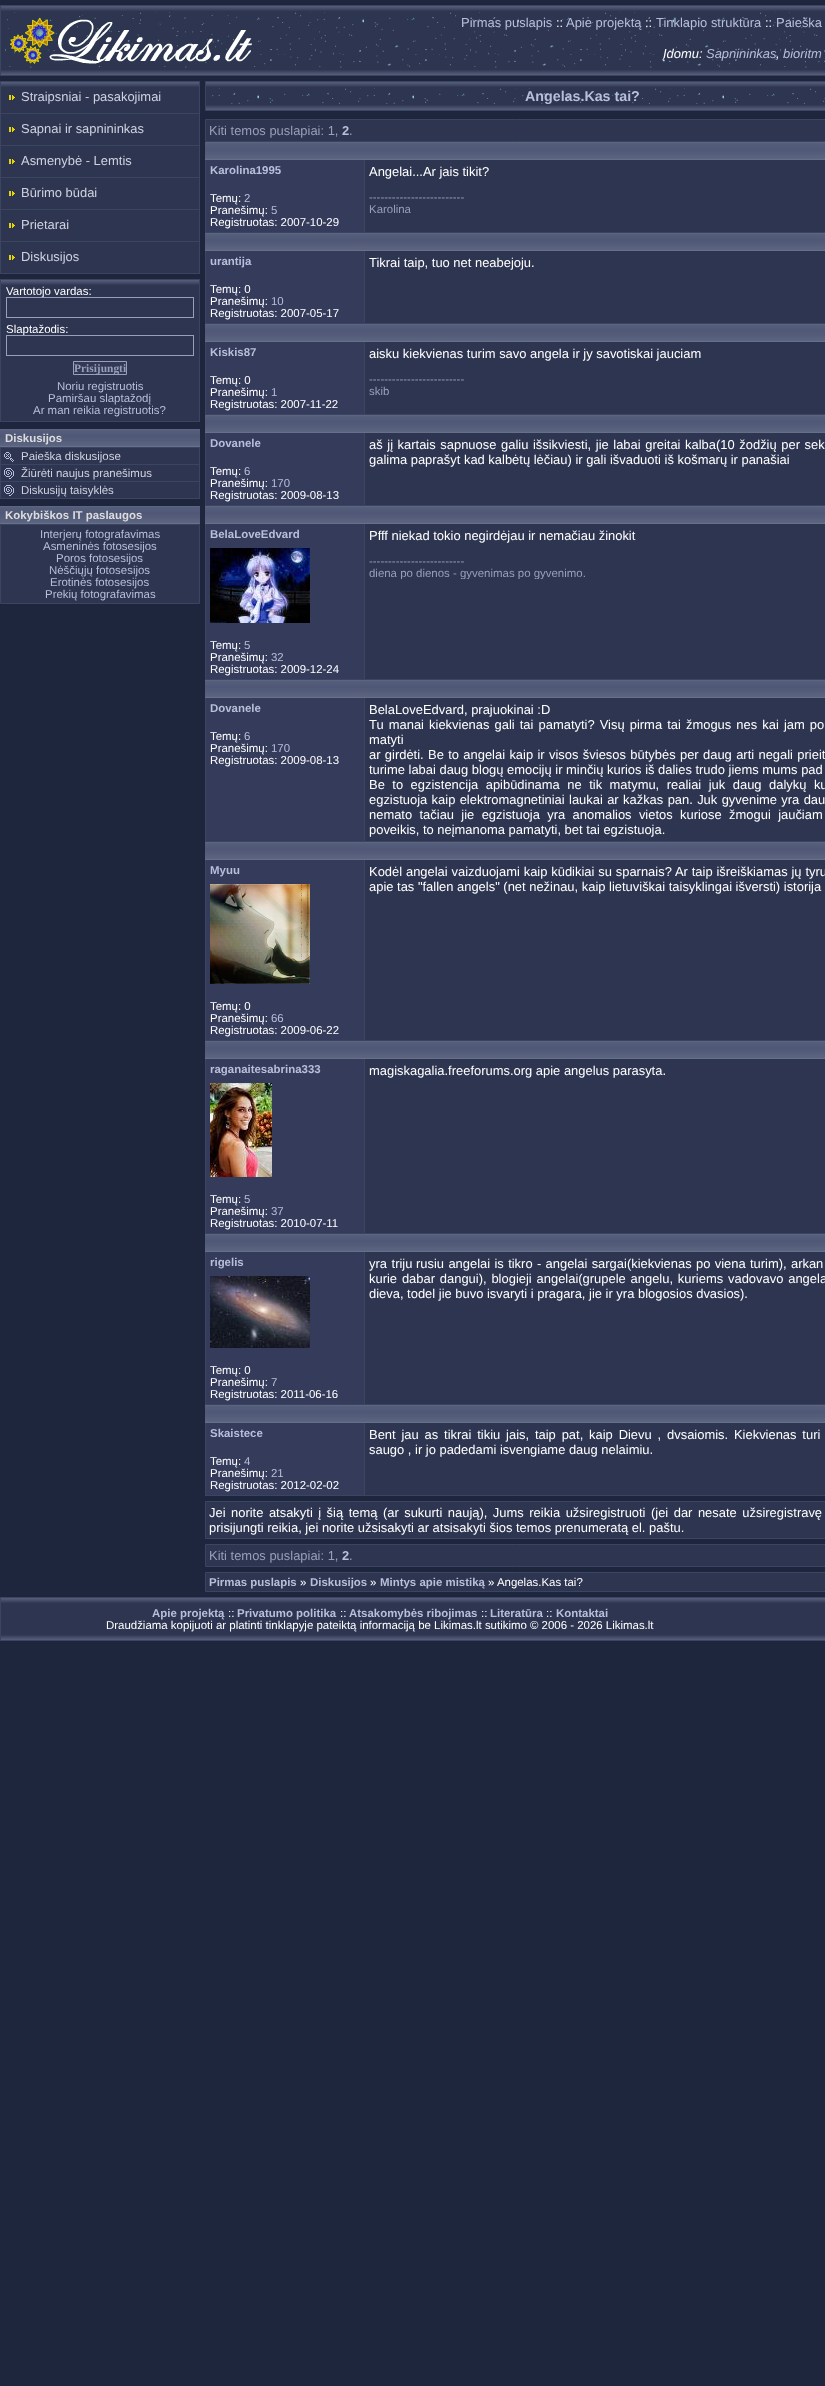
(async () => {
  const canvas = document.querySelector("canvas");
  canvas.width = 825;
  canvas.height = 2386;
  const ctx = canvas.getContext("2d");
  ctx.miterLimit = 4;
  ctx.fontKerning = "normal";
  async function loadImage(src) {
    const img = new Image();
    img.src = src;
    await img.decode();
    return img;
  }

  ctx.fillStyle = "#1e263d";
  ctx.fillRect(0, 0, 825, 2386);
  ctx.fillStyle = "#2e3551";
  ctx.fillRect(1, 11, 824, 59);
  ctx.drawImage(await loadImage("img/1.png"), 1, 6, 824, 5);
  ctx.strokeStyle = "#3b4461";
  ctx.strokeRect(0.5, 5.5, 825, 70);
  ctx.drawImage(await loadImage("img/2.png"), 1, 70, 824, 5);
  ctx.drawImage(await loadImage("img/3.png"), 5, 12, 820, 56);
  ctx.drawImage(await loadImage("img/4.png"), 8, 15, 249, 51);
  ctx.fillRect(1, 87, 198, 186);
  ctx.drawImage(await loadImage("img/5.png"), 1, 82, 198, 5);
  ctx.strokeRect(0.5, 81.5, 199, 192);
  ctx.fillStyle = "#3b4461";
  ctx.fillRect(1, 113, 198, 1);
  ctx.drawImage(await loadImage("img/6.png"), 9, 95, 6, 5);
  ctx.fillRect(1, 145, 198, 1);
  ctx.drawImage(await loadImage("img/6.png"), 9, 127, 6, 5);
  ctx.fillRect(1, 177, 198, 1);
  ctx.drawImage(await loadImage("img/6.png"), 9, 159, 6, 5);
  ctx.fillRect(1, 209, 198, 1);
  ctx.drawImage(await loadImage("img/6.png"), 9, 191, 6, 5);
  ctx.fillRect(1, 241, 198, 1);
  ctx.drawImage(await loadImage("img/6.png"), 9, 223, 6, 5);
  ctx.drawImage(await loadImage("img/6.png"), 9, 255, 6, 5);
  ctx.fillStyle = "#2e3551";
  ctx.fillRect(1, 285, 198, 136);
  ctx.drawImage(await loadImage("img/5.png"), 1, 280, 198, 5);
  ctx.strokeRect(0.5, 279.5, 199, 142);
  ctx.fillStyle = "#333955";
  ctx.beginPath();
  ctx.rect(73.5, 361.5, 53, 13);
  ctx.fill();
  ctx.strokeStyle = "#979fba";
  ctx.stroke();
  ctx.fillStyle = "#5b6481";
  ctx.fillRect(0, 429, 200, 1);
  ctx.drawImage(await loadImage("img/7.png"), 0, 430, 200, 17);
  for (const [x, y, w, h, color] of [
    [1, 448, 198, 50, "#2e3551"],
    [199, 447, 1, 52, "#3b4461"],
    [0, 498, 200, 1, "#3b4461"],
    [0, 447, 1, 52, "#3b4461"],
    [1, 447, 198, 1, "#3b4461"],
  ]) {
    ctx.fillStyle = color;
    ctx.fillRect(x, y, w, h);
  }
  ctx.drawImage(await loadImage("img/8.png"), 4, 452, 10, 10);
  ctx.fillRect(1, 464, 198, 1);
  ctx.drawImage(await loadImage("img/9.png"), 4, 468, 10, 11);
  ctx.fillRect(1, 481, 198, 1);
  ctx.drawImage(await loadImage("img/9.png"), 4, 485, 10, 11);
  ctx.fillStyle = "#5b6481";
  ctx.fillRect(0, 506, 200, 1);
  ctx.drawImage(await loadImage("img/7.png"), 0, 507, 200, 17);
  ctx.fillStyle = "#2e3551";
  ctx.beginPath();
  ctx.rect(0.5, 524.5, 199, 79);
  ctx.fill();
  ctx.strokeStyle = "#3b4461";
  ctx.stroke();
  ctx.fillRect(206, 87, 619, 18);
  ctx.drawImage(await loadImage("img/10.png"), 206, 82, 619, 5);
  ctx.strokeRect(205.5, 81.5, 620, 29);
  ctx.drawImage(await loadImage("img/11.png"), 206, 105, 619, 5);
  ctx.drawImage(await loadImage("img/12.png"), 212, 88, 613, 16);
  ctx.beginPath();
  ctx.rect(205.5, 119.5, 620, 22);
  ctx.fill();
  ctx.stroke();
  ctx.fillStyle = "#5b6481";
  ctx.fillRect(205, 142, 620, 1);
  ctx.drawImage(await loadImage("img/13.png"), 205, 143, 620, 17);
  for (const [x, y, w, h, color] of [
    [206, 160, 158, 72, "#353b5b"],
    [364, 160, 1, 73, "#3b4461"],
    [205, 232, 620, 1, "#3b4461"],
    [205, 160, 1, 73, "#3b4461"],
    [365, 160, 460, 72, "#2e3551"],
    [205, 233, 620, 1, "#5b6481"],
  ]) {
    ctx.fillStyle = color;
    ctx.fillRect(x, y, w, h);
  }
  ctx.drawImage(await loadImage("img/13.png"), 205, 234, 620, 17);
  for (const [x, y, w, h, color] of [
    [206, 251, 158, 72, "#353b5b"],
    [364, 251, 1, 73, "#3b4461"],
    [205, 323, 620, 1, "#3b4461"],
    [205, 251, 1, 73, "#3b4461"],
    [365, 251, 460, 72, "#2e3551"],
    [205, 324, 620, 1, "#5b6481"],
  ]) {
    ctx.fillStyle = color;
    ctx.fillRect(x, y, w, h);
  }
  ctx.drawImage(await loadImage("img/13.png"), 205, 325, 620, 17);
  for (const [x, y, w, h, color] of [
    [206, 342, 158, 72, "#353b5b"],
    [364, 342, 1, 73, "#3b4461"],
    [205, 414, 620, 1, "#3b4461"],
    [205, 342, 1, 73, "#3b4461"],
    [365, 342, 460, 72, "#2e3551"],
    [205, 415, 620, 1, "#5b6481"],
  ]) {
    ctx.fillStyle = color;
    ctx.fillRect(x, y, w, h);
  }
  ctx.drawImage(await loadImage("img/13.png"), 205, 416, 620, 17);
  for (const [x, y, w, h, color] of [
    [206, 433, 158, 72, "#353b5b"],
    [364, 433, 1, 73, "#3b4461"],
    [205, 505, 620, 1, "#3b4461"],
    [205, 433, 1, 73, "#3b4461"],
    [365, 433, 460, 72, "#2e3551"],
    [205, 506, 620, 1, "#5b6481"],
  ]) {
    ctx.fillStyle = color;
    ctx.fillRect(x, y, w, h);
  }
  ctx.drawImage(await loadImage("img/13.png"), 205, 507, 620, 17);
  for (const [x, y, w, h, color] of [
    [206, 524, 158, 155, "#353b5b"],
    [364, 524, 1, 156, "#3b4461"],
    [205, 679, 620, 1, "#3b4461"],
    [205, 524, 1, 156, "#3b4461"],
  ]) {
    ctx.fillStyle = color;
    ctx.fillRect(x, y, w, h);
  }
  ctx.drawImage(await loadImage("img/14.png"), 210, 548, 100, 75);
  ctx.fillStyle = "#2e3551";
  ctx.fillRect(365, 524, 460, 155);
  ctx.fillStyle = "#5b6481";
  ctx.fillRect(205, 680, 620, 1);
  ctx.drawImage(await loadImage("img/13.png"), 205, 681, 620, 17);
  for (const [x, y, w, h, color] of [
    [206, 698, 158, 143, "#353b5b"],
    [364, 698, 1, 144, "#3b4461"],
    [205, 841, 620, 1, "#3b4461"],
    [205, 698, 1, 144, "#3b4461"],
    [365, 698, 460, 143, "#2e3551"],
    [205, 842, 620, 1, "#5b6481"],
  ]) {
    ctx.fillStyle = color;
    ctx.fillRect(x, y, w, h);
  }
  ctx.drawImage(await loadImage("img/13.png"), 205, 843, 620, 17);
  for (const [x, y, w, h, color] of [
    [206, 860, 158, 180, "#353b5b"],
    [364, 860, 1, 181, "#3b4461"],
    [205, 1040, 620, 1, "#3b4461"],
    [205, 860, 1, 181, "#3b4461"],
  ]) {
    ctx.fillStyle = color;
    ctx.fillRect(x, y, w, h);
  }
  ctx.drawImage(await loadImage("img/15.png"), 210, 884, 100, 100);
  ctx.fillStyle = "#2e3551";
  ctx.fillRect(365, 860, 460, 180);
  ctx.fillStyle = "#5b6481";
  ctx.fillRect(205, 1041, 620, 1);
  ctx.drawImage(await loadImage("img/13.png"), 205, 1042, 620, 17);
  for (const [x, y, w, h, color] of [
    [206, 1059, 158, 174, "#353b5b"],
    [364, 1059, 1, 175, "#3b4461"],
    [205, 1233, 620, 1, "#3b4461"],
    [205, 1059, 1, 175, "#3b4461"],
  ]) {
    ctx.fillStyle = color;
    ctx.fillRect(x, y, w, h);
  }
  ctx.drawImage(await loadImage("img/16.png"), 210, 1083, 62, 94);
  ctx.fillStyle = "#2e3551";
  ctx.fillRect(365, 1059, 460, 174);
  ctx.fillStyle = "#5b6481";
  ctx.fillRect(205, 1234, 620, 1);
  ctx.drawImage(await loadImage("img/13.png"), 205, 1235, 620, 17);
  for (const [x, y, w, h, color] of [
    [206, 1252, 158, 152, "#353b5b"],
    [364, 1252, 1, 153, "#3b4461"],
    [205, 1404, 620, 1, "#3b4461"],
    [205, 1252, 1, 153, "#3b4461"],
  ]) {
    ctx.fillStyle = color;
    ctx.fillRect(x, y, w, h);
  }
  ctx.drawImage(await loadImage("img/17.png"), 210, 1276, 100, 72);
  ctx.fillStyle = "#2e3551";
  ctx.fillRect(365, 1252, 460, 152);
  ctx.fillStyle = "#5b6481";
  ctx.fillRect(205, 1405, 620, 1);
  ctx.drawImage(await loadImage("img/13.png"), 205, 1406, 620, 17);
  for (const [x, y, w, h, color] of [
    [206, 1423, 158, 72, "#353b5b"],
    [364, 1423, 1, 73, "#3b4461"],
    [205, 1495, 620, 1, "#3b4461"],
    [205, 1423, 1, 73, "#3b4461"],
    [365, 1423, 460, 72, "#2e3551"],
  ]) {
    ctx.fillStyle = color;
    ctx.fillRect(x, y, w, h);
  }
  ctx.beginPath();
  ctx.rect(205.5, 1501.5, 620, 37);
  ctx.fill();
  ctx.stroke();
  ctx.beginPath();
  ctx.rect(205.5, 1544.5, 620, 22);
  ctx.fill();
  ctx.stroke();
  ctx.beginPath();
  ctx.rect(205.5, 1572.5, 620, 19);
  ctx.fill();
  ctx.stroke();
  ctx.fillRect(1, 1603, 824, 32);
  ctx.drawImage(await loadImage("img/1.png"), 1, 1598, 824, 5);
  ctx.strokeRect(0.5, 1597.5, 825, 43);
  ctx.drawImage(await loadImage("img/2.png"), 1, 1635, 824, 5);
  ctx.font = "12.95px Liberation Sans";
  ctx.fillStyle = "#b7bfda";
  ctx.fillText("Pirmas puslapis", 461, 27);
  ctx.fillStyle = "#ffffff";
  ctx.fillText("::", 556, 27);
  ctx.fillStyle = "#b7bfda";
  ctx.fillText("Apie projektą", 566, 27);
  ctx.fillStyle = "#ffffff";
  ctx.fillText("::", 645, 27);
  ctx.fillStyle = "#b7bfda";
  ctx.fillText("Tinklapio struktūra", 656, 27);
  ctx.fillStyle = "#ffffff";
  ctx.fillText("::", 765, 27);
  ctx.fillStyle = "#b7bfda";
  ctx.fillText("Paieška", 776, 27);
  ctx.font = "italic 12.95px Liberation Sans";
  ctx.fillStyle = "#ffffff";
  ctx.fillText("Įdomu:", 663, 58);
  ctx.fillStyle = "#b7bfda";
  ctx.fillText("Sapnininkas", 706, 58);
  ctx.fillStyle = "#ffffff";
  ctx.fillText(",", 776, 58);
  ctx.fillStyle = "#b7bfda";
  ctx.fillText("bioritm", 783, 58);
  ctx.font = "12.95px Liberation Sans";
  ctx.fillStyle = "#d0d2df";
  for (const [text, x, y] of [
    ["Straipsniai - pasakojimai", 21, 101],
    ["Sapnai ir sapnininkas", 21, 133],
    ["Asmenybė - Lemtis", 21, 165],
    ["Būrimo būdai", 21, 197],
    ["Prietarai", 21, 229],
    ["Diskusijos", 21, 261],
  ]) {
    ctx.fillText(text, x, y);
  }
  ctx.font = "11.45px Liberation Sans";
  ctx.fillStyle = "#ffffff";
  ctx.fillText("Vartotojo vardas:", 6, 295);
  ctx.strokeStyle = "#979fba";
  ctx.strokeRect(6.5, 297.5, 187, 20);
  ctx.fillText("Slaptažodis:", 6, 333);
  ctx.strokeRect(6.5, 335.5, 187, 20);
  ctx.save();
  ctx.beginPath();
  ctx.rect(74, 362, 52, 12);
  ctx.clip();
  ctx.font = "bold 11.45px Liberation Serif";
  ctx.fillStyle = "#979fba";
  ctx.fillText("Prisijungti", 74, 372);
  ctx.restore();
  ctx.fillStyle = "#b7bfda";
  for (const [text, x, y] of [
    ["Noriu registruotis", 57, 390],
    ["Pamiršau slaptažodį", 48, 402],
    ["Ar man reikia registruotis?", 33, 414],
  ]) {
    ctx.fillText(text, x, y);
  }
  ctx.font = "bold 11.45px Liberation Sans";
  ctx.fillStyle = "#dddddd";
  ctx.fillText("Diskusijos", 5, 442);
  ctx.font = "11.45px Liberation Sans";
  ctx.fillStyle = "#d0d2df";
  for (const [text, x, y] of [
    ["Paieška diskusijose", 21, 460],
    ["Žiūrėti naujus pranešimus", 21, 477],
    ["Diskusijų taisyklės", 21, 494],
  ]) {
    ctx.fillText(text, x, y);
  }
  ctx.font = "bold 11.45px Liberation Sans";
  ctx.fillStyle = "#dddddd";
  ctx.fillText("Kokybiškos IT paslaugos", 5, 519);
  ctx.font = "11.45px Liberation Sans";
  ctx.fillStyle = "#b7bfda";
  for (const [text, x, y] of [
    ["Interjerų fotografavimas", 40, 538],
    ["Asmeninės fotosesijos", 43, 550],
    ["Poros fotosesijos", 56, 562],
    ["Nėščiųjų fotosesijos", 49, 574],
    ["Erotinės fotosesijos", 50, 586],
    ["Prekių fotografavimas", 45, 598],
  ]) {
    ctx.fillText(text, x, y);
  }
  ctx.font = "bold 14.25px Liberation Sans";
  ctx.fillText("Angelas.Kas tai?", 525, 101);
  ctx.font = "12.95px Liberation Sans";
  ctx.fillStyle = "#979fba";
  ctx.fillText("Kiti temos puslapiai: 1,", 209, 135);
  ctx.font = "bold 12.95px Liberation Sans";
  ctx.fillStyle = "#b7bfda";
  ctx.fillText("2", 342, 135);
  ctx.font = "12.95px Liberation Sans";
  ctx.fillStyle = "#979fba";
  ctx.fillText(".", 349, 135);
  ctx.font = "bold 11.45px Liberation Sans";
  ctx.fillStyle = "#b7bfda";
  ctx.fillText("Karolina1995", 210, 174);
  ctx.font = "11.45px Liberation Sans";
  ctx.fillStyle = "#ffffff";
  ctx.fillText("Temų:", 210, 202);
  ctx.fillStyle = "#b7bfda";
  ctx.fillText("2", 244, 202);
  ctx.fillStyle = "#ffffff";
  ctx.fillText("Pranešimų:", 210, 214);
  ctx.fillStyle = "#b7bfda";
  ctx.fillText("5", 271, 214);
  ctx.fillStyle = "#ffffff";
  ctx.fillText("Registruotas: 2007-10-29", 210, 226);
  ctx.font = "12.95px Liberation Sans";
  ctx.fillText("Angelai...Ar jais tikit?", 369, 176);
  ctx.font = "11.45px Liberation Sans";
  ctx.fillStyle = "#979fba";
  ctx.fillText("-------------------------", 369, 201);
  ctx.fillText("Karolina", 369, 213);
  ctx.font = "bold 11.45px Liberation Sans";
  ctx.fillStyle = "#b7bfda";
  ctx.fillText("urantija", 210, 265);
  ctx.font = "11.45px Liberation Sans";
  ctx.fillStyle = "#ffffff";
  ctx.fillText("Temų: 0", 210, 293);
  ctx.fillText("Pranešimų:", 210, 305);
  ctx.fillStyle = "#b7bfda";
  ctx.fillText("10", 271, 305);
  ctx.fillStyle = "#ffffff";
  ctx.fillText("Registruotas: 2007-05-17", 210, 317);
  ctx.font = "12.95px Liberation Sans";
  ctx.fillText("Tikrai taip, tuo net neabejoju.", 369, 267);
  ctx.font = "bold 11.45px Liberation Sans";
  ctx.fillStyle = "#b7bfda";
  ctx.fillText("Kiskis87", 210, 356);
  ctx.font = "11.45px Liberation Sans";
  ctx.fillStyle = "#ffffff";
  ctx.fillText("Temų: 0", 210, 384);
  ctx.fillText("Pranešimų:", 210, 396);
  ctx.fillStyle = "#b7bfda";
  ctx.fillText("1", 271, 396);
  ctx.fillStyle = "#ffffff";
  ctx.fillText("Registruotas: 2007-11-22", 210, 408);
  ctx.font = "12.95px Liberation Sans";
  ctx.fillText("aisku kiekvienas turim savo angela ir jy savotiskai jauciam", 369, 358);
  ctx.font = "11.45px Liberation Sans";
  ctx.fillStyle = "#979fba";
  ctx.fillText("-------------------------", 369, 383);
  ctx.fillText("skib", 369, 395);
  ctx.font = "bold 11.45px Liberation Sans";
  ctx.fillStyle = "#b7bfda";
  ctx.fillText("Dovanele", 210, 447);
  ctx.font = "11.45px Liberation Sans";
  ctx.fillStyle = "#ffffff";
  ctx.fillText("Temų:", 210, 475);
  ctx.fillStyle = "#b7bfda";
  ctx.fillText("6", 244, 475);
  ctx.fillStyle = "#ffffff";
  ctx.fillText("Pranešimų:", 210, 487);
  ctx.fillStyle = "#b7bfda";
  ctx.fillText("170", 271, 487);
  ctx.fillStyle = "#ffffff";
  ctx.fillText("Registruotas: 2009-08-13", 210, 499);
  ctx.wordSpacing = "1px";
  ctx.font = "12.95px Liberation Sans";
  ctx.fillText("aš jį kartais sapnuose galiu išsikviesti, jie labai greitai kalba(10 žodžių per sek", 369, 449);
  ctx.wordSpacing = "0px";
  ctx.fillText("galima paprašyt kad kalbėtų lėčiau) ir gali išvaduoti iš košmarų ir panašiai", 369, 464);
  ctx.font = "bold 11.45px Liberation Sans";
  ctx.fillStyle = "#b7bfda";
  ctx.fillText("BelaLoveEdvard", 210, 538);
  ctx.font = "11.45px Liberation Sans";
  ctx.fillStyle = "#ffffff";
  ctx.fillText("Temų:", 210, 649);
  ctx.fillStyle = "#b7bfda";
  ctx.fillText("5", 244, 649);
  ctx.fillStyle = "#ffffff";
  ctx.fillText("Pranešimų:", 210, 661);
  ctx.fillStyle = "#b7bfda";
  ctx.fillText("32", 271, 661);
  ctx.fillStyle = "#ffffff";
  ctx.fillText("Registruotas: 2009-12-24", 210, 673);
  ctx.font = "12.95px Liberation Sans";
  ctx.fillText("Pfff niekad tokio negirdėjau ir nemačiau žinokit", 369, 540);
  ctx.font = "11.45px Liberation Sans";
  ctx.fillStyle = "#979fba";
  ctx.fillText("-------------------------", 369, 565);
  ctx.save();
  ctx.beginPath();
  ctx.rect(369, 528, 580, 51);
  ctx.clip();
  ctx.fillText("diena po dienos - gyvenimas po gyvenimo.", 369, 577);
  ctx.restore();
  ctx.font = "bold 11.45px Liberation Sans";
  ctx.fillStyle = "#b7bfda";
  ctx.fillText("Dovanele", 210, 712);
  ctx.font = "11.45px Liberation Sans";
  ctx.fillStyle = "#ffffff";
  ctx.fillText("Temų:", 210, 740);
  ctx.fillStyle = "#b7bfda";
  ctx.fillText("6", 244, 740);
  ctx.fillStyle = "#ffffff";
  ctx.fillText("Pranešimų:", 210, 752);
  ctx.fillStyle = "#b7bfda";
  ctx.fillText("170", 271, 752);
  ctx.fillStyle = "#ffffff";
  ctx.fillText("Registruotas: 2009-08-13", 210, 764);
  ctx.font = "12.95px Liberation Sans";
  ctx.fillText("BelaLoveEdvard, prajuokinai :D", 369, 714);
  ctx.wordSpacing = "1.5px";
  ctx.fillText("Tu manai kiekvienas gali tai pamatyti? Visų pirma tai žmogus nes kai jam po", 369, 729);
  ctx.wordSpacing = "0px";
  ctx.fillText("matyti", 369, 744);
  ctx.wordSpacing = "0.75px";
  ctx.fillText("ar girdėti. Be to angelai kaip ir visos šviesos būtybės per daug arti negali prieit", 369, 759);
  ctx.wordSpacing = "0px";
  ctx.fillText("turime labai daug blogų emocijų ir minčių kurios iš dalies trudo jiems mums pad", 369, 774);
  ctx.wordSpacing = "3.9px";
  ctx.fillText("Be to egzistencija apibūdinama ne tik matymu, realiai juk daug dalykų ku", 369, 789);
  ctx.wordSpacing = "0.75px";
  ctx.fillText("egzistuoja kaip elektromagnetiniai laukai ar kažkas pan. Juk gyvenime yra dau", 369, 804);
  ctx.wordSpacing = "3.75px";
  ctx.fillText("nemato tačiau jie egzistuoja yra anomalios vietos kuriose žmogui jaučiam", 369, 819);
  ctx.wordSpacing = "0px";
  ctx.fillText("poveikis, to neįmanoma pamatyti, bet tai egzistuoja.", 369, 834);
  ctx.font = "bold 11.45px Liberation Sans";
  ctx.fillStyle = "#b7bfda";
  ctx.fillText("Myuu", 210, 874);
  ctx.font = "11.45px Liberation Sans";
  ctx.fillStyle = "#ffffff";
  ctx.fillText("Temų: 0", 210, 1010);
  ctx.fillText("Pranešimų:", 210, 1022);
  ctx.fillStyle = "#b7bfda";
  ctx.fillText("66", 271, 1022);
  ctx.fillStyle = "#ffffff";
  ctx.fillText("Registruotas: 2009-06-22", 210, 1034);
  ctx.wordSpacing = "0.25px";
  ctx.font = "12.95px Liberation Sans";
  ctx.fillText("Kodėl angelai vaizduojami kaip kūdikiai su sparnais? Ar taip išreiškiamas jų tyru", 369, 876);
  ctx.wordSpacing = "0px";
  ctx.fillText("apie tas \"fallen angels\" (net nežinau, kaip lietuviškai taisyklingai išversti) istorija", 369, 891);
  ctx.font = "bold 11.45px Liberation Sans";
  ctx.fillStyle = "#b7bfda";
  ctx.fillText("raganaitesabrina333", 210, 1073);
  ctx.font = "11.45px Liberation Sans";
  ctx.fillStyle = "#ffffff";
  ctx.fillText("Temų:", 210, 1203);
  ctx.fillStyle = "#b7bfda";
  ctx.fillText("5", 244, 1203);
  ctx.fillStyle = "#ffffff";
  ctx.fillText("Pranešimų:", 210, 1215);
  ctx.fillStyle = "#b7bfda";
  ctx.fillText("37", 271, 1215);
  ctx.fillStyle = "#ffffff";
  ctx.fillText("Registruotas: 2010-07-11", 210, 1227);
  ctx.font = "12.95px Liberation Sans";
  ctx.fillText("magiskagalia.freeforums.org apie angelus parasyta.", 369, 1075);
  ctx.font = "bold 11.45px Liberation Sans";
  ctx.fillStyle = "#b7bfda";
  ctx.fillText("rigelis", 210, 1266);
  ctx.font = "11.45px Liberation Sans";
  ctx.fillStyle = "#ffffff";
  ctx.fillText("Temų: 0", 210, 1374);
  ctx.fillText("Pranešimų:", 210, 1386);
  ctx.fillStyle = "#b7bfda";
  ctx.fillText("7", 271, 1386);
  ctx.fillStyle = "#ffffff";
  ctx.fillText("Registruotas: 2011-06-16", 210, 1398);
  ctx.wordSpacing = "1px";
  ctx.font = "12.95px Liberation Sans";
  ctx.fillText("yra triju", 369, 1268);
  ctx.wordSpacing = "0.75px";
  ctx.fillText("rusiu angelai is tikro - angelai sargai(kiekvienas po viena turim), arkan", 416, 1268);
  ctx.wordSpacing = "1.25px";
  ctx.fillText("kurie dabar dangui), blogieji angelai(grupele angelu, kuriems vadovavo angela", 369, 1283);
  ctx.wordSpacing = "0px";
  ctx.fillText("dieva, todel jie buvo isvaryti i pragara, jie ir yra blogosios dvasios).", 369, 1298);
  ctx.font = "bold 11.45px Liberation Sans";
  ctx.fillStyle = "#b7bfda";
  ctx.fillText("Skaistece", 210, 1437);
  ctx.font = "11.45px Liberation Sans";
  ctx.fillStyle = "#ffffff";
  ctx.fillText("Temų:", 210, 1465);
  ctx.fillStyle = "#b7bfda";
  ctx.fillText("4", 244, 1465);
  ctx.fillStyle = "#ffffff";
  ctx.fillText("Pranešimų:", 210, 1477);
  ctx.fillStyle = "#b7bfda";
  ctx.fillText("21", 271, 1477);
  ctx.fillStyle = "#ffffff";
  ctx.fillText("Registruotas: 2012-02-02", 210, 1489);
  ctx.wordSpacing = "2.25px";
  ctx.font = "12.95px Liberation Sans";
  ctx.fillText("Bent jau as tikrai tikiu jais, taip pat, kaip Dievu , dvsaiomis. Kiekvienas turi", 369, 1439);
  ctx.wordSpacing = "0px";
  ctx.fillText("saugo , ir jo padedami isvengiame daug nelaimiu.", 369, 1454);
  ctx.wordSpacing = "1.9px";
  ctx.fillText("Jei norite atsakyti į šią temą (ar sukurti naują), Jums reikia užsiregistruoti (jei dar nesate užsiregistravę", 209, 1517);
  ctx.wordSpacing = "0px";
  ctx.fillText("prisijungti reikia, jei norite užsisakyti ar atsisakyti šios temos prenumeratą el. paštu.", 209, 1532);
  ctx.fillStyle = "#979fba";
  ctx.fillText("Kiti temos puslapiai: 1,", 209, 1560);
  ctx.font = "bold 12.95px Liberation Sans";
  ctx.fillStyle = "#b7bfda";
  ctx.fillText("2", 342, 1560);
  ctx.font = "12.95px Liberation Sans";
  ctx.fillStyle = "#979fba";
  ctx.fillText(".", 349, 1560);
  ctx.font = "bold 11.45px Liberation Sans";
  ctx.fillStyle = "#b7bfda";
  ctx.fillText("Pirmas puslapis", 209, 1586);
  ctx.font = "11.45px Liberation Sans";
  ctx.fillStyle = "#ffffff";
  ctx.fillText("»", 300, 1586);
  ctx.font = "bold 11.45px Liberation Sans";
  ctx.fillStyle = "#b7bfda";
  ctx.fillText("Diskusijos", 310, 1586);
  ctx.font = "11.45px Liberation Sans";
  ctx.fillStyle = "#ffffff";
  ctx.fillText("»", 370, 1586);
  ctx.font = "bold 11.45px Liberation Sans";
  ctx.fillStyle = "#b7bfda";
  ctx.fillText("Mintys apie mistiką", 380, 1586);
  ctx.font = "11.45px Liberation Sans";
  ctx.fillStyle = "#ffffff";
  ctx.fillText("» Angelas.Kas tai?", 488, 1586);
  ctx.font = "bold 11.45px Liberation Sans";
  ctx.fillStyle = "#b7bfda";
  ctx.fillText("Apie projektą", 152, 1617);
  ctx.font = "11.45px Liberation Sans";
  ctx.fillStyle = "#ffffff";
  ctx.fillText("::", 228, 1617);
  ctx.font = "bold 11.45px Liberation Sans";
  ctx.fillStyle = "#b7bfda";
  ctx.fillText("Privatumo politika", 237, 1617);
  ctx.font = "11.45px Liberation Sans";
  ctx.fillStyle = "#ffffff";
  ctx.fillText("::", 340, 1617);
  ctx.font = "bold 11.45px Liberation Sans";
  ctx.fillStyle = "#b7bfda";
  ctx.fillText("Atsakomybės ribojimas", 349, 1617);
  ctx.font = "11.45px Liberation Sans";
  ctx.fillStyle = "#ffffff";
  ctx.fillText("::", 481, 1617);
  ctx.font = "bold 11.45px Liberation Sans";
  ctx.fillStyle = "#b7bfda";
  ctx.fillText("Literatūra", 490, 1617);
  ctx.font = "11.45px Liberation Sans";
  ctx.fillStyle = "#ffffff";
  ctx.fillText("::", 546, 1617);
  ctx.font = "bold 11.45px Liberation Sans";
  ctx.fillStyle = "#b7bfda";
  ctx.fillText("Kontaktai", 556, 1617);
  ctx.font = "11.45px Liberation Sans";
  ctx.fillStyle = "#ffffff";
  ctx.fillText("Draudžiama kopijuoti ar platinti tinklapyje pateiktą informaciją be Likimas.lt sutikimo © 2006 - 2026 Likimas.lt", 106, 1629);
})();
